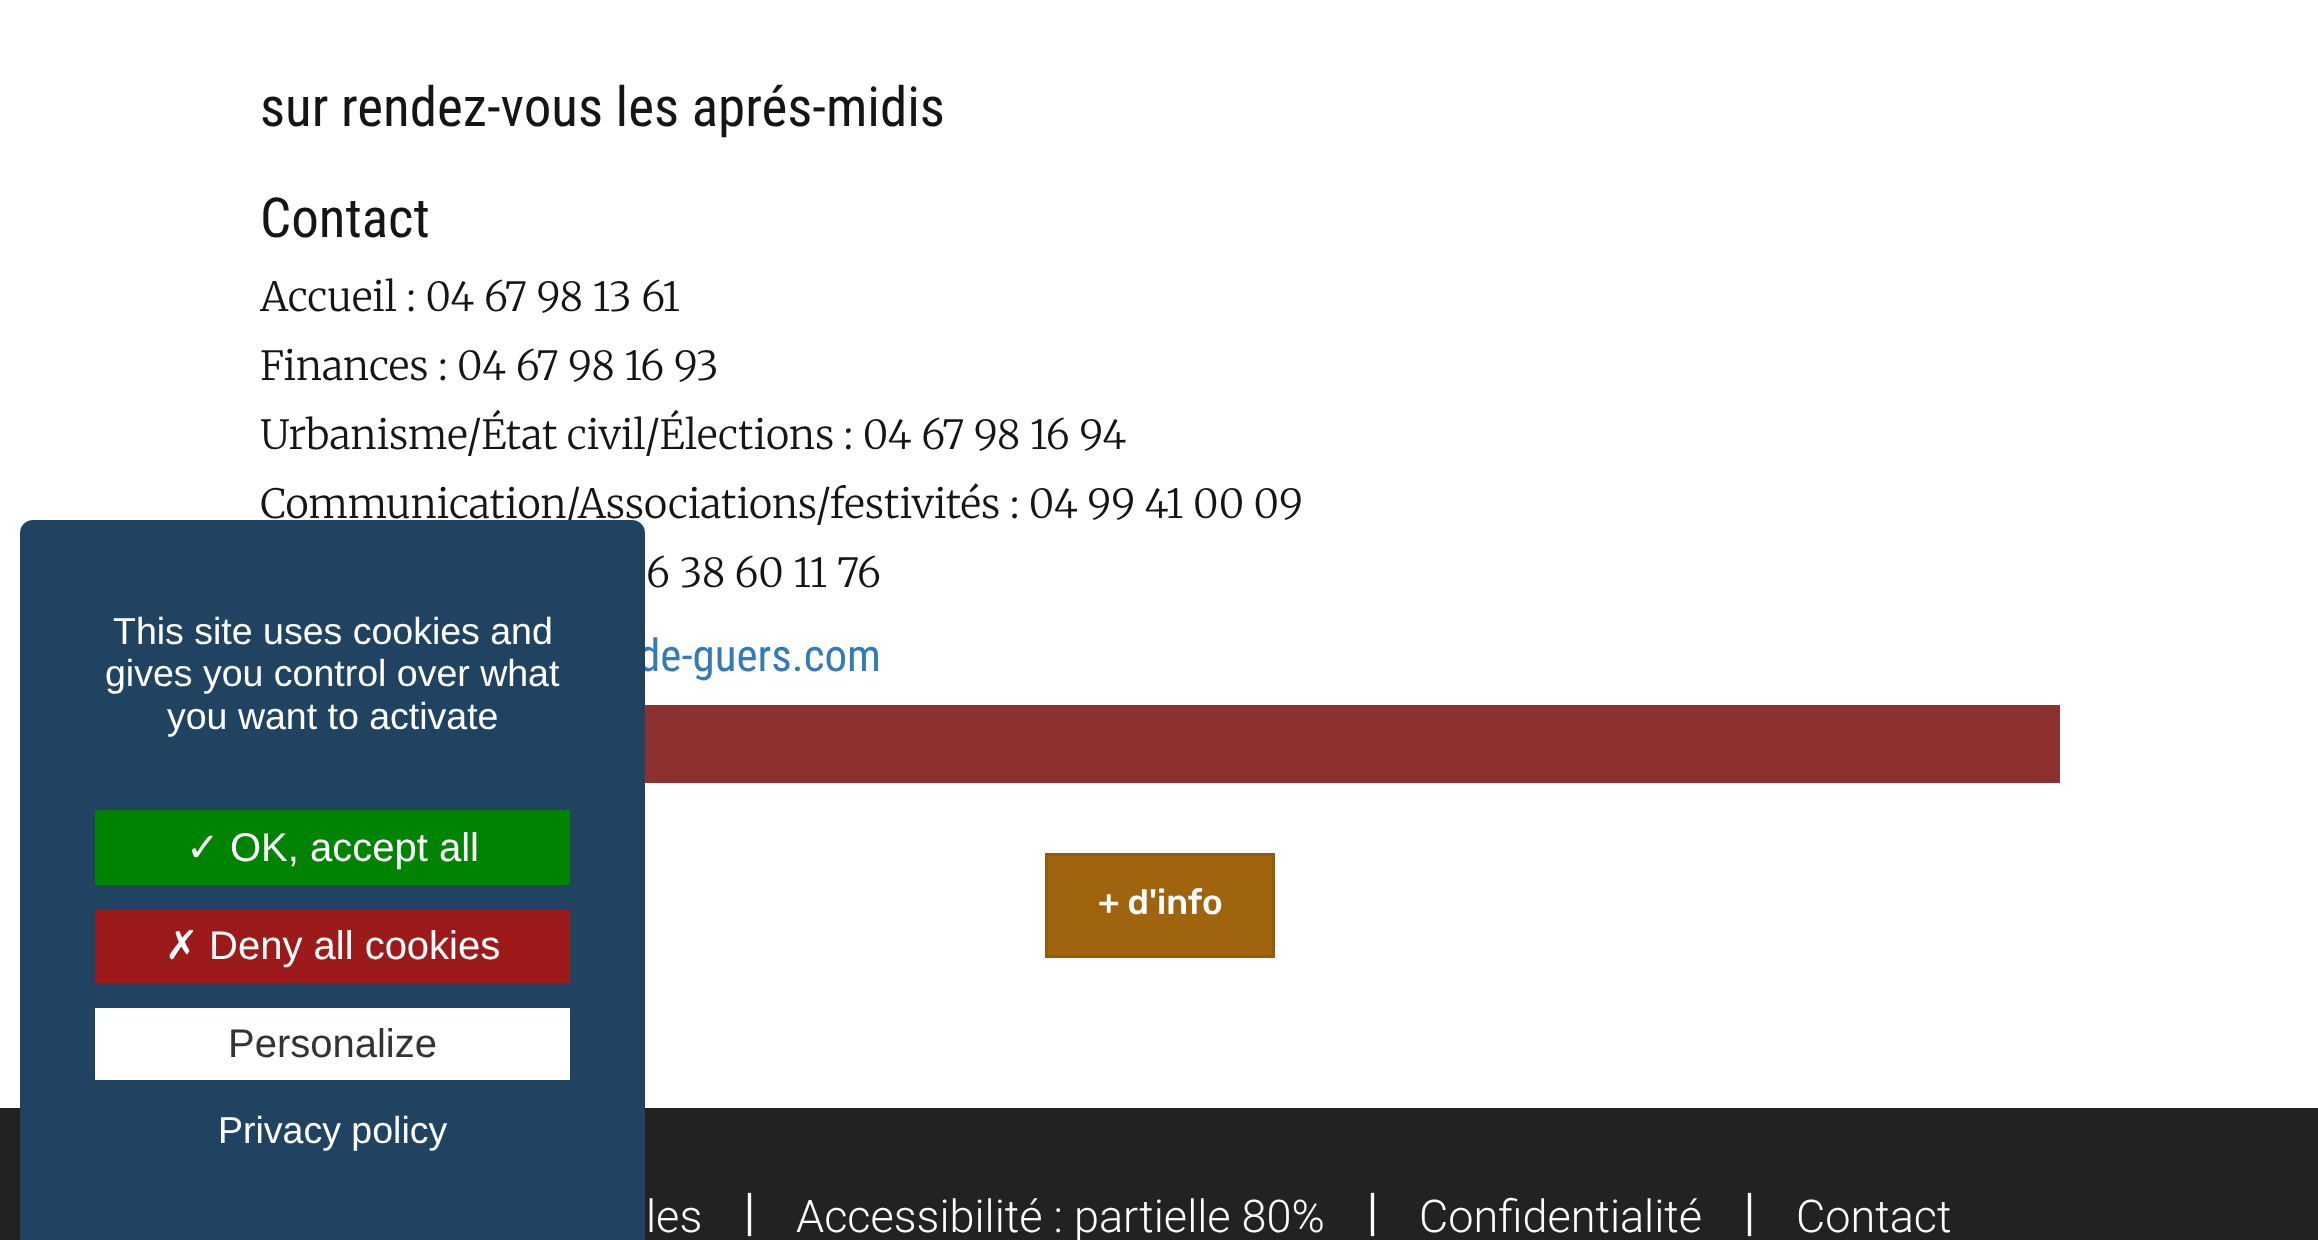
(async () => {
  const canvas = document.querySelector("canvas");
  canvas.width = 2318;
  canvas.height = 1240;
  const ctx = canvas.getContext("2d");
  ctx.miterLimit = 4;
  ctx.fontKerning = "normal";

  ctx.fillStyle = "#ffffff";
  ctx.fillRect(0, 0, 2318, 1240);
  ctx.fillStyle = "#8d3030";
  ctx.fillRect(645, 705, 1415, 78);
  ctx.fillStyle = "#a0630e";
  ctx.beginPath();
  ctx.rect(1046.5, 854.5, 227, 102);
  ctx.fill();
  ctx.strokeStyle = "#925a0d";
  ctx.lineWidth = 3;
  ctx.stroke();
  ctx.fillStyle = "#222222";
  ctx.fillRect(0, 1108, 2318, 132);
  ctx.font = "55px Roboto Condensed";
  ctx.fillStyle = "#151515";
  ctx.fillText("sur rendez-vous les aprés-midis", 260, 126);
  ctx.fillText("Contact", 260, 237);
  ctx.font = "300 40px Merriweather";
  for (const [text, x, y] of [
    ["Accueil : 04 67 98 13 61", 260, 311],
    ["Finances : 04 67 98 16 93", 260, 380],
    ["Urbanisme/État civil/Élections : 04 67 98 16 94", 260, 449],
    ["Communication/Associations/festivités : 04 99 41 00 09", 260, 518],
    ["6 38 60 11 76", 646, 587],
  ]) {
    ctx.fillText(text, x, y);
  }
  ctx.font = "45px Roboto Condensed";
  ctx.fillStyle = "#337ab7";
  ctx.fillText("de-guers.com", 638, 671);
  ctx.font = "500 35px Rubik";
  ctx.fillStyle = "#ffffff";
  ctx.fillText("+ d'info", 1098, 914);
  ctx.fillStyle = "#214362";
  ctx.beginPath();
  ctx.roundRect(20, 520, 625, 720, [13, 13, 0, 0]);
  ctx.fill();
  ctx.font = "37.5px Liberation Sans";
  ctx.fillStyle = "#ffffff";
  for (const [text, x, y] of [
    ["This site uses cookies and", 113, 644],
    ["gives you control over what", 105, 686],
    ["you want to activate", 167, 729],
  ]) {
    ctx.fillText(text, x, y);
  }
  ctx.fillStyle = "#008300";
  ctx.fillRect(95, 810, 475, 75);
  ctx.font = "40px DejaVu Sans";
  ctx.fillStyle = "#ffffff";
  ctx.fillText("✓", 186, 861);
  ctx.font = "40px Liberation Sans";
  ctx.fillText("OK, accept all", 230, 861);
  ctx.fillStyle = "#9c1a1a";
  ctx.fillRect(95, 910, 475, 73);
  ctx.font = "40px DejaVu Sans";
  ctx.fillStyle = "#ffffff";
  ctx.fillText("✗", 165, 959);
  ctx.font = "40px Liberation Sans";
  ctx.fillText("Deny all cookies", 209, 959);
  ctx.fillRect(95, 1008, 475, 72);
  ctx.fillStyle = "#333333";
  ctx.fillText("Personalize", 228, 1057);
  ctx.font = "37.5px Liberation Sans";
  ctx.fillStyle = "#ffffff";
  ctx.fillText("Privacy policy", 218, 1143);
  ctx.font = "300 45px Roboto";
  ctx.fillText("les", 646, 1232);
  ctx.font = "300 45px Merriweather";
  ctx.fillText("|", 740, 1232);
  ctx.font = "300 45px Roboto";
  ctx.fillText("Accessibilité : partielle 80%", 796, 1232);
  ctx.font = "300 45px Merriweather";
  ctx.fillText("|", 1363, 1232);
  ctx.font = "300 45px Roboto";
  ctx.fillText("Confidentialité", 1419, 1232);
  ctx.font = "300 45px Merriweather";
  ctx.fillText("|", 1740, 1232);
  ctx.font = "300 45px Roboto";
  ctx.fillText("Contact", 1796, 1232);
})();
